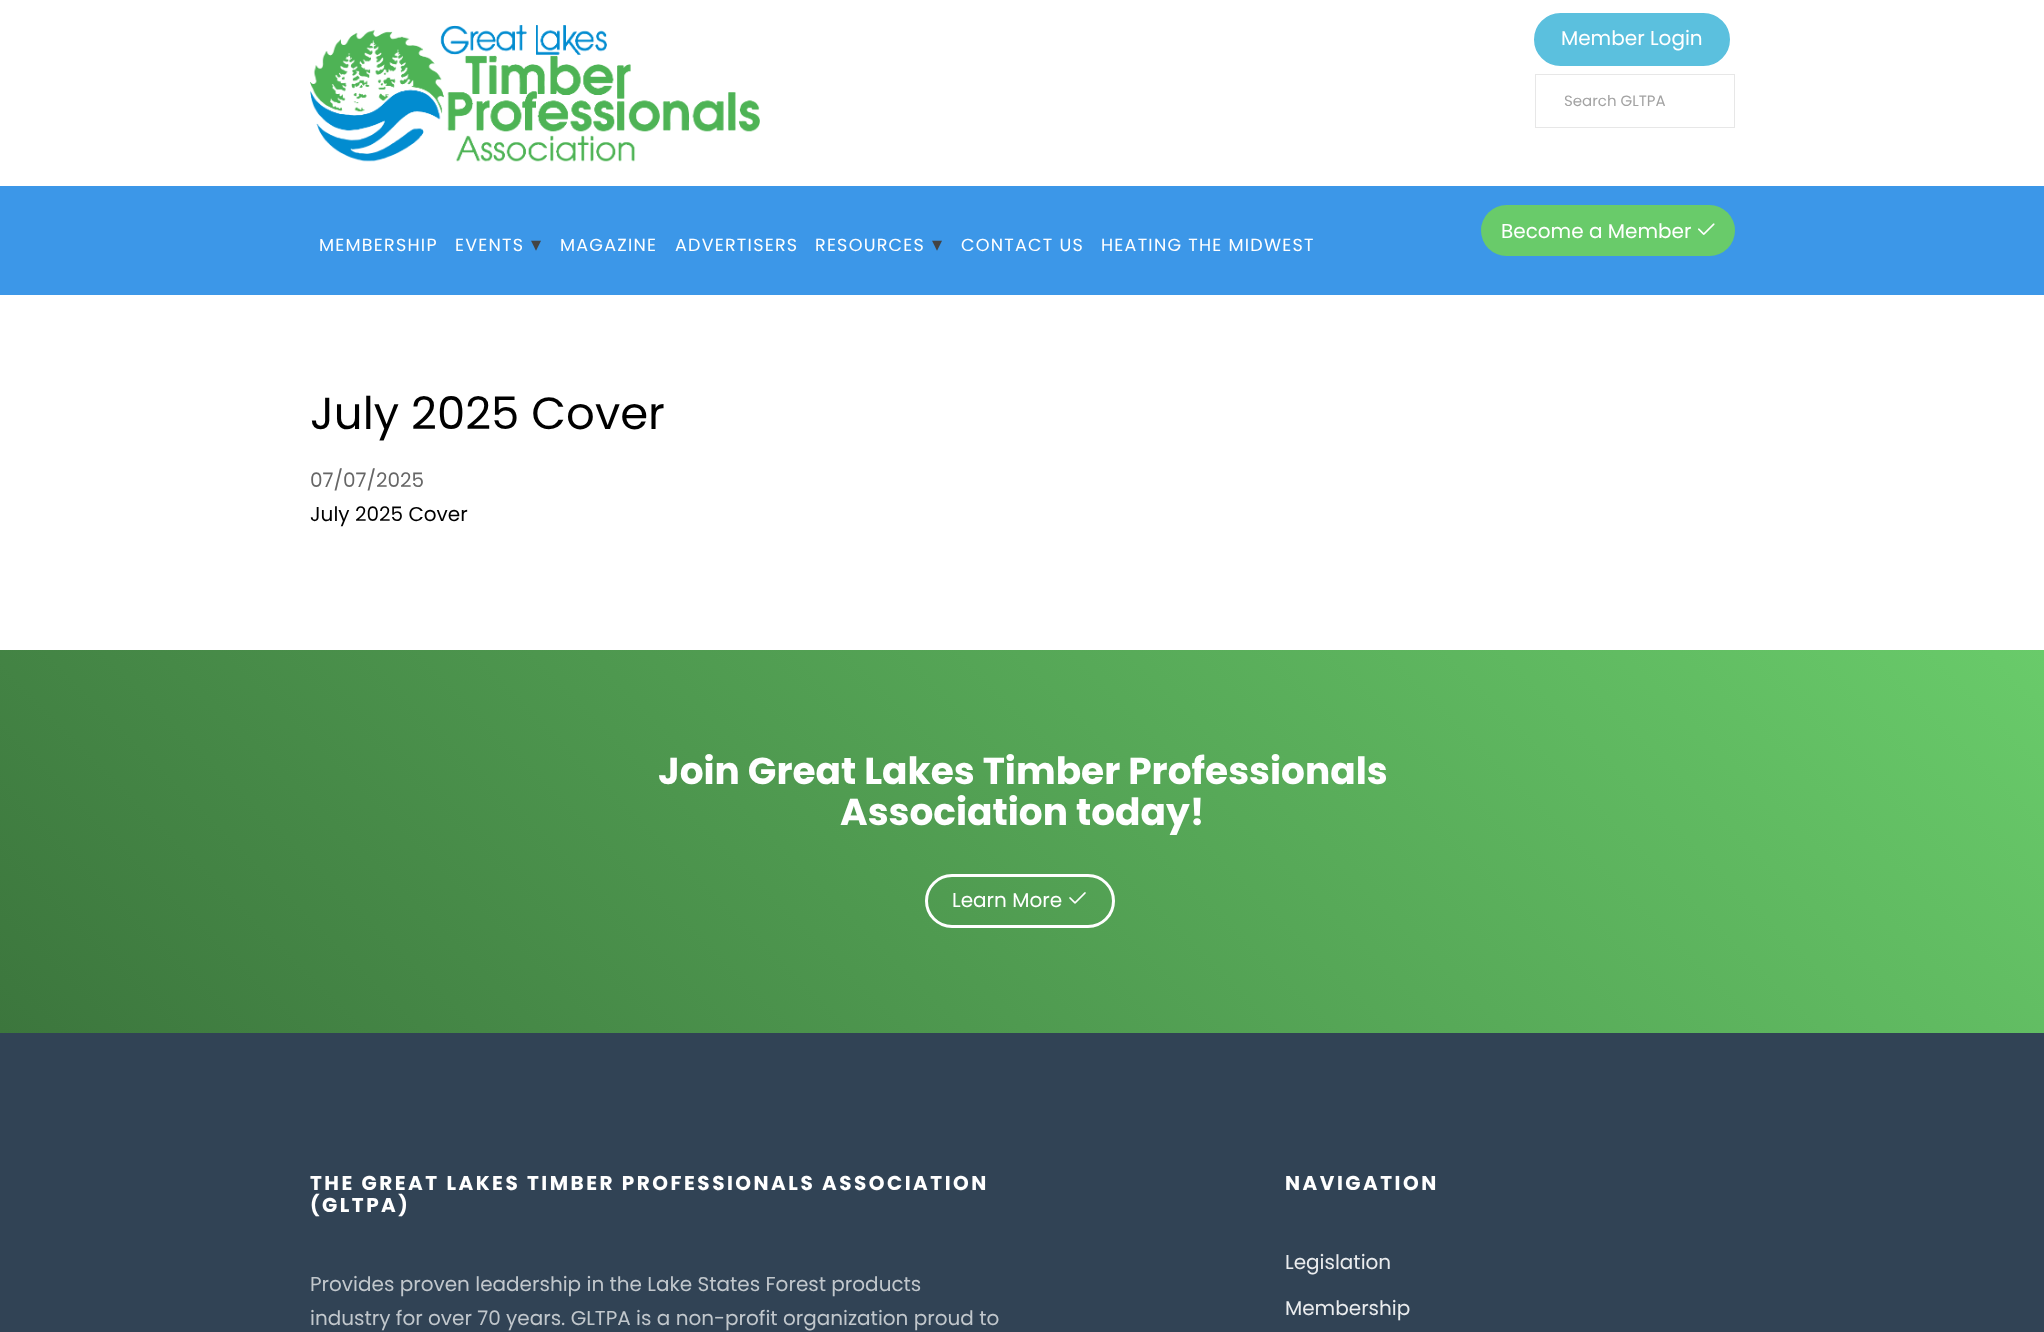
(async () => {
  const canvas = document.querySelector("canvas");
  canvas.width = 2044;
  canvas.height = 1332;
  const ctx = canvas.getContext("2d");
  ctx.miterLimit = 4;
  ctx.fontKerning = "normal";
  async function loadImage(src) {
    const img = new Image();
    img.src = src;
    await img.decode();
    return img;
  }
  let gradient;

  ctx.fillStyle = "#ffffff";
  ctx.fillRect(0, 0, 2044, 1332);
  ctx.drawImage(await loadImage("img/1.png"), 310, 25, 450, 137);
  ctx.fillStyle = "#5bc0de";
  ctx.beginPath();
  ctx.roundRect(1535.5, 14.5, 193, 50, 25);
  ctx.fill();
  ctx.strokeStyle = "#5bc0de";
  ctx.lineWidth = 3;
  ctx.stroke();
  ctx.strokeStyle = "#e7e7e7";
  ctx.lineWidth = 1;
  ctx.strokeRect(1535.5, 74.5, 199, 53);
  ctx.fillStyle = "#3c97e8";
  ctx.fillRect(0, 186, 2044, 109);
  ctx.fillStyle = "#69cb6a";
  ctx.beginPath();
  ctx.roundRect(1481, 205, 254, 51, 25.5);
  ctx.fill();
  ctx.drawImage(await loadImage("img/2.png"), 1698, 223, 17, 12);
  gradient = ctx.createLinearGradient(416, 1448, 1629, 234);
  gradient.addColorStop(0, "#3c763d");
  gradient.addColorStop(1, "#69cb6a");
  ctx.fillStyle = gradient;
  ctx.fillRect(0, 650, 2044, 383);
  ctx.beginPath();
  ctx.roundRect(926.5, 875.5, 187, 51, 25.5);
  ctx.strokeStyle = "#ffffff";
  ctx.lineWidth = 3;
  ctx.stroke();
  ctx.drawImage(await loadImage("img/3.png"), 1069, 892, 17, 12);
  ctx.fillStyle = "#314355";
  ctx.fillRect(0, 1033, 2044, 299);
  ctx.font = "20px Poppins";
  ctx.fillStyle = "#ffffff";
  ctx.fillText("Member Login", 1561, 45);
  ctx.font = "15px Poppins";
  ctx.fillStyle = "#a3a3a3";
  ctx.fillText("Search GLTPA", 1564, 106);
  ctx.font = "20px Poppins";
  ctx.fillStyle = "#ffffff";
  ctx.fillText("Become a Member", 1501, 238);
  ctx.letterSpacing = "1.25px";
  ctx.font = "17.5px Poppins";
  ctx.fillText("MEMBERSHIP", 319, 251);
  ctx.fillText("EVENTS", 455, 251);
  ctx.font = "20px DejaVu Sans";
  ctx.fillStyle = "#444444";
  ctx.fillText("▾", 531, 251);
  ctx.font = "17.5px Poppins";
  ctx.fillStyle = "#ffffff";
  for (const [text, x, y] of [
    ["MAGAZINE", 560, 251],
    ["ADVERTISERS", 675, 251],
    ["RESOURCES", 815, 251],
  ]) {
    ctx.fillText(text, x, y);
  }
  ctx.font = "20px DejaVu Sans";
  ctx.fillStyle = "#444444";
  ctx.fillText("▾", 932, 251);
  ctx.font = "17.5px Poppins";
  ctx.fillStyle = "#ffffff";
  ctx.fillText("CONTACT US", 961, 251);
  ctx.fillText("HEATING THE MIDWEST", 1101, 251);
  ctx.letterSpacing = "0px";
  ctx.font = "45px Poppins";
  ctx.fillStyle = "#000000";
  ctx.fillText("July 2025 Cover", 310, 429);
  ctx.font = "20px Poppins";
  ctx.fillStyle = "#666666";
  ctx.fillText("07/07/2025", 310, 487);
  ctx.fillStyle = "#000000";
  ctx.fillText("July 2025 Cover", 310, 521);
  ctx.font = "bold 37.5px Poppins";
  ctx.fillStyle = "#ffffff";
  ctx.fillText("Join Great Lakes Timber Professionals", 658, 784);
  ctx.fillText("Association today!", 840, 825);
  ctx.font = "20px Poppins";
  ctx.fillText("Learn More", 952, 907);
  ctx.letterSpacing = "2.5px";
  ctx.font = "bold 20px Poppins";
  ctx.fillText("THE GREAT LAKES TIMBER PROFESSIONALS ASSOCIATION", 310, 1190);
  ctx.fillText("(GLTPA)", 310, 1212);
  ctx.letterSpacing = "0px";
  ctx.font = "20px Poppins";
  ctx.fillStyle = "#c1c7cc";
  ctx.fillText("Provides proven leadership in the Lake States Forest products", 310, 1291);
  ctx.fillText("industry for over 70 years. GLTPA is a non-profit organization proud to", 310, 1325);
  ctx.letterSpacing = "2.5px";
  ctx.font = "bold 20px Poppins";
  ctx.fillStyle = "#ffffff";
  ctx.fillText("NAVIGATION", 1285, 1190);
  ctx.letterSpacing = "0px";
  ctx.font = "20px Poppins";
  ctx.fillStyle = "#eaecee";
  ctx.fillText("Legislation", 1285, 1269);
  ctx.fillText("Membership", 1285, 1315);
})();
